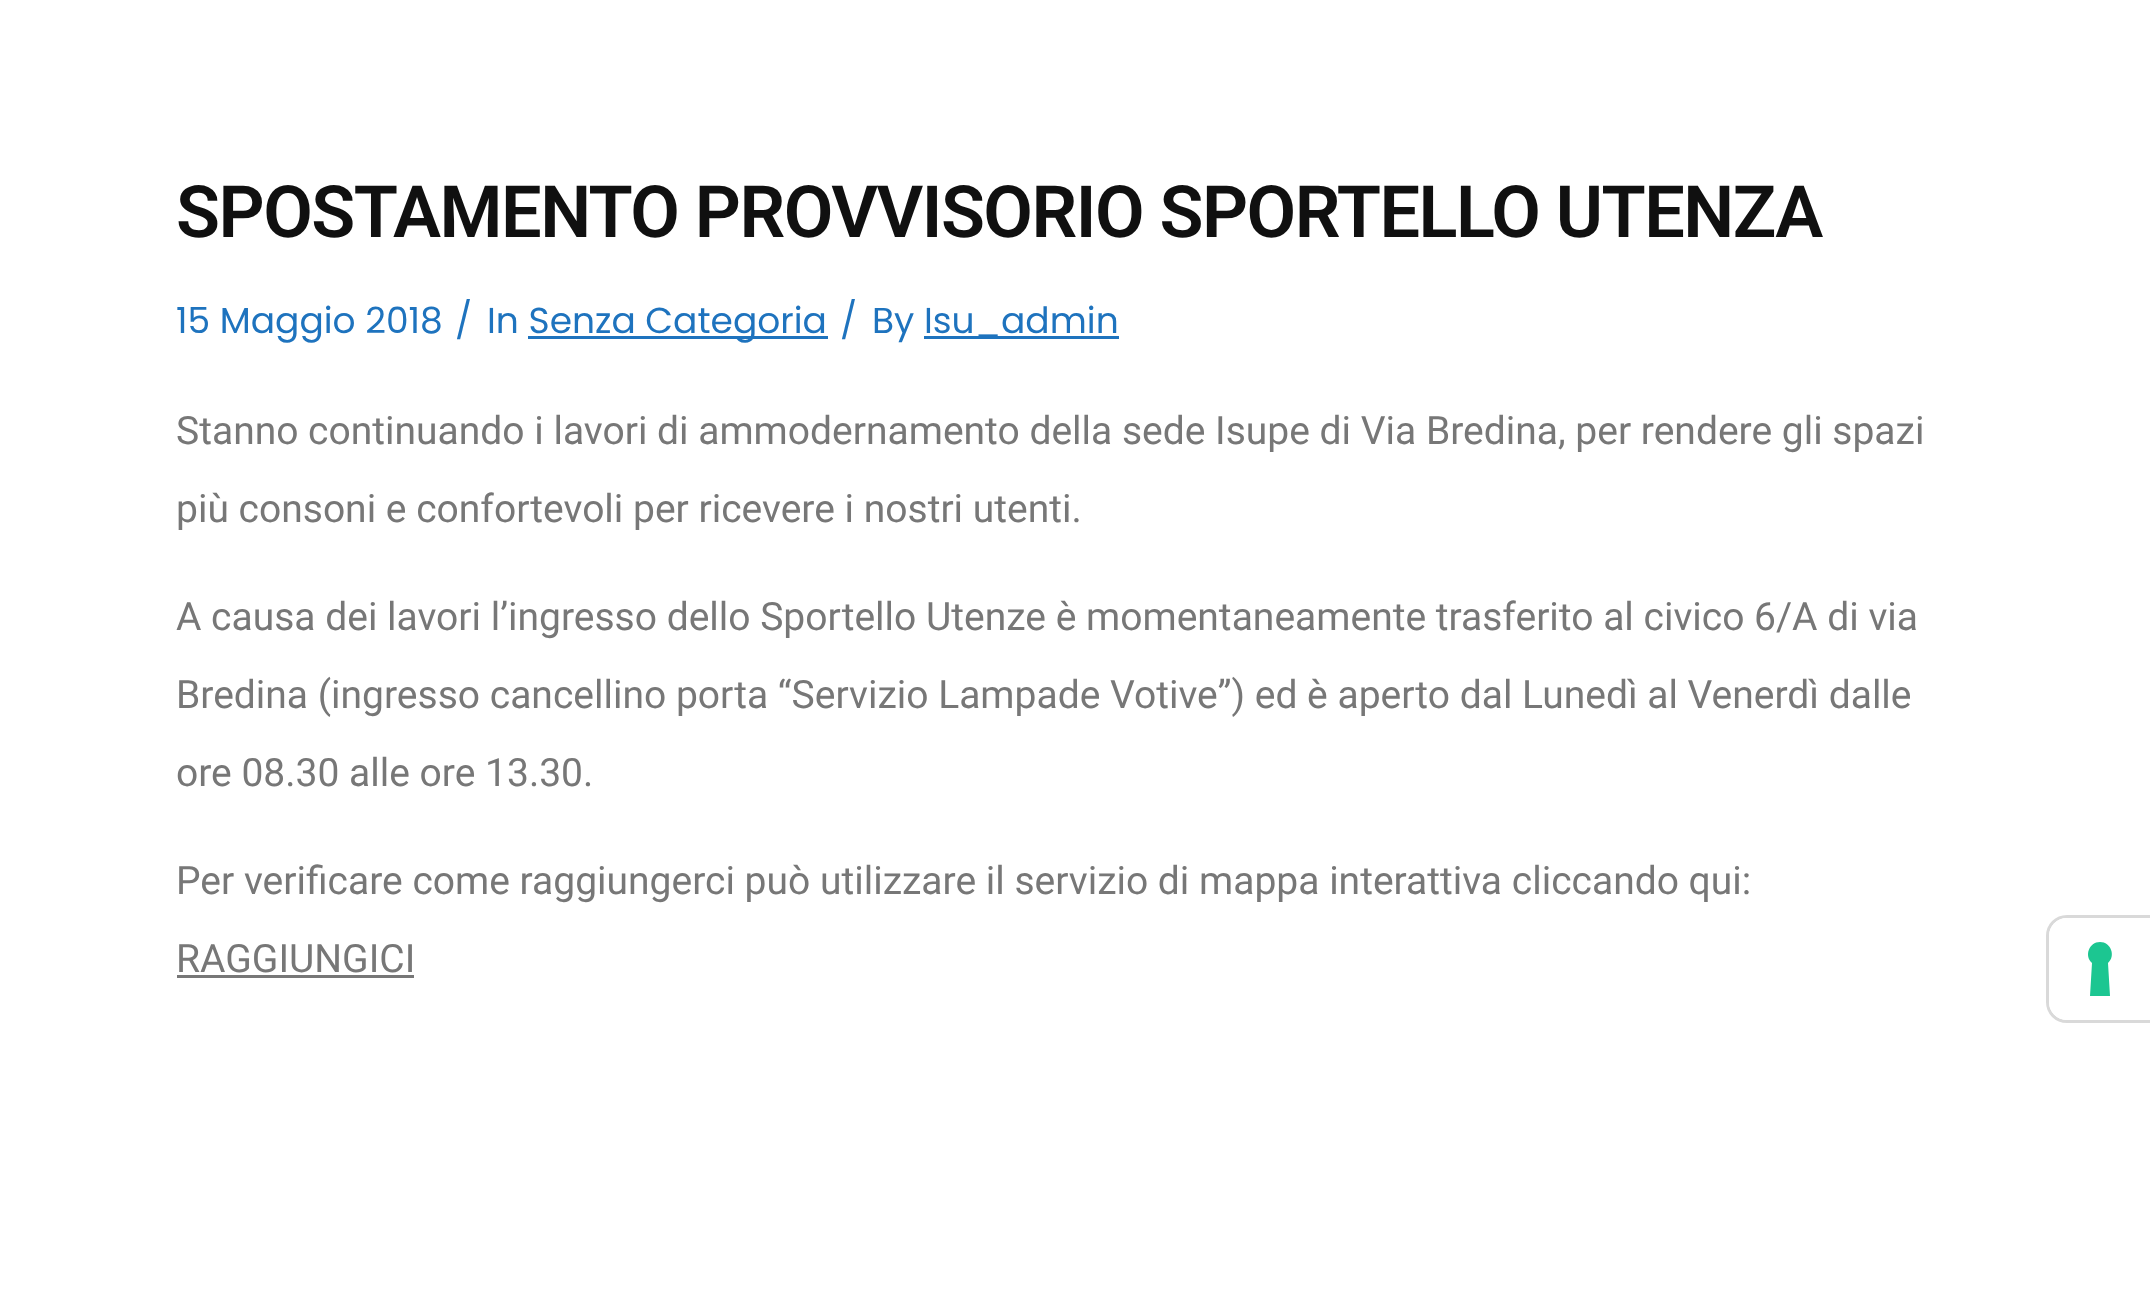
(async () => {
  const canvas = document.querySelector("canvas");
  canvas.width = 2150;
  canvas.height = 1292;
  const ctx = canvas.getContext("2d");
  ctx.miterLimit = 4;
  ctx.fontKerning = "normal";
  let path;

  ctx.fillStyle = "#ffffff";
  ctx.fillRect(0, 0, 2150, 1292);
  for (const [x, y, w, h, color] of [
    [528, 336, 300, 3, "#1e73be"],
    [924, 336, 195, 3, "#1e73be"],
    [177, 975, 237, 3, "#777777"],
  ]) {
    ctx.fillStyle = color;
    ctx.fillRect(x, y, w, h);
  }
  path = new Path2D("M2067 916.5H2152.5V1021.5H2067C2056 1021.5 2047.5 1013 2047.5 1002V936C2047.5 925 2056 916.5 2067 916.5Z");
  ctx.strokeStyle = "#d9d9d9";
  ctx.lineWidth = 3;
  ctx.stroke(path);
  ctx.fillStyle = "#ffffff";
  path = new Path2D("M2067 918H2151V1020H2067C2057 1020 2049 1012 2049 1002V936C2049 926 2057 918 2067 918Z");
  ctx.fill(path);
  ctx.fillStyle = "#1cc691";
  path = new Path2D("M2100 942C2111 942 2116 956 2108 963L2110 996H2090L2092 963C2084 956 2089 942 2100 942Z");
  ctx.fill(path, "evenodd");
  ctx.letterSpacing = "-1.5px";
  ctx.font = "600 72px Roboto";
  ctx.fillStyle = "#101010";
  ctx.fillText("SPOSTAMENTO PROVVISORIO SPORTELLO UTENZA", 176, 237);
  ctx.letterSpacing = "0px";
  ctx.font = "36px Poppins";
  ctx.fillStyle = "#1e73be";
  for (const [text, x, y] of [
    ["15 Maggio 2018", 176, 333],
    ["/", 455, 333],
    ["In Senza Categoria", 487, 333],
    ["/", 840, 333],
    ["By Isu_admin", 872, 333],
  ]) {
    ctx.fillText(text, x, y);
  }
  ctx.font = "39px Roboto";
  ctx.fillStyle = "#777777";
  for (const [text, x, y] of [
    ["Stanno continuando i lavori di ammodernamento della sede Isupe di Via Bredina, per rendere gli spazi", 176, 444],
    ["più consoni e confortevoli per ricevere i nostri utenti.", 176, 522],
    ["A causa dei lavori l’ingresso dello Sportello Utenze è momentaneamente trasferito al civico 6/A di via", 176, 630],
    ["Bredina (ingresso cancellino porta “Servizio Lampade Votive”) ed è aperto dal Lunedì al Venerdì dalle", 176, 708],
    ["ore 08.30 alle ore 13.30.", 176, 786],
    ["Per verificare come raggiungerci può utilizzare il servizio di mappa interattiva cliccando qui:", 176, 894],
    ["RAGGIUNGICI", 176, 972],
  ]) {
    ctx.fillText(text, x, y);
  }
})();
